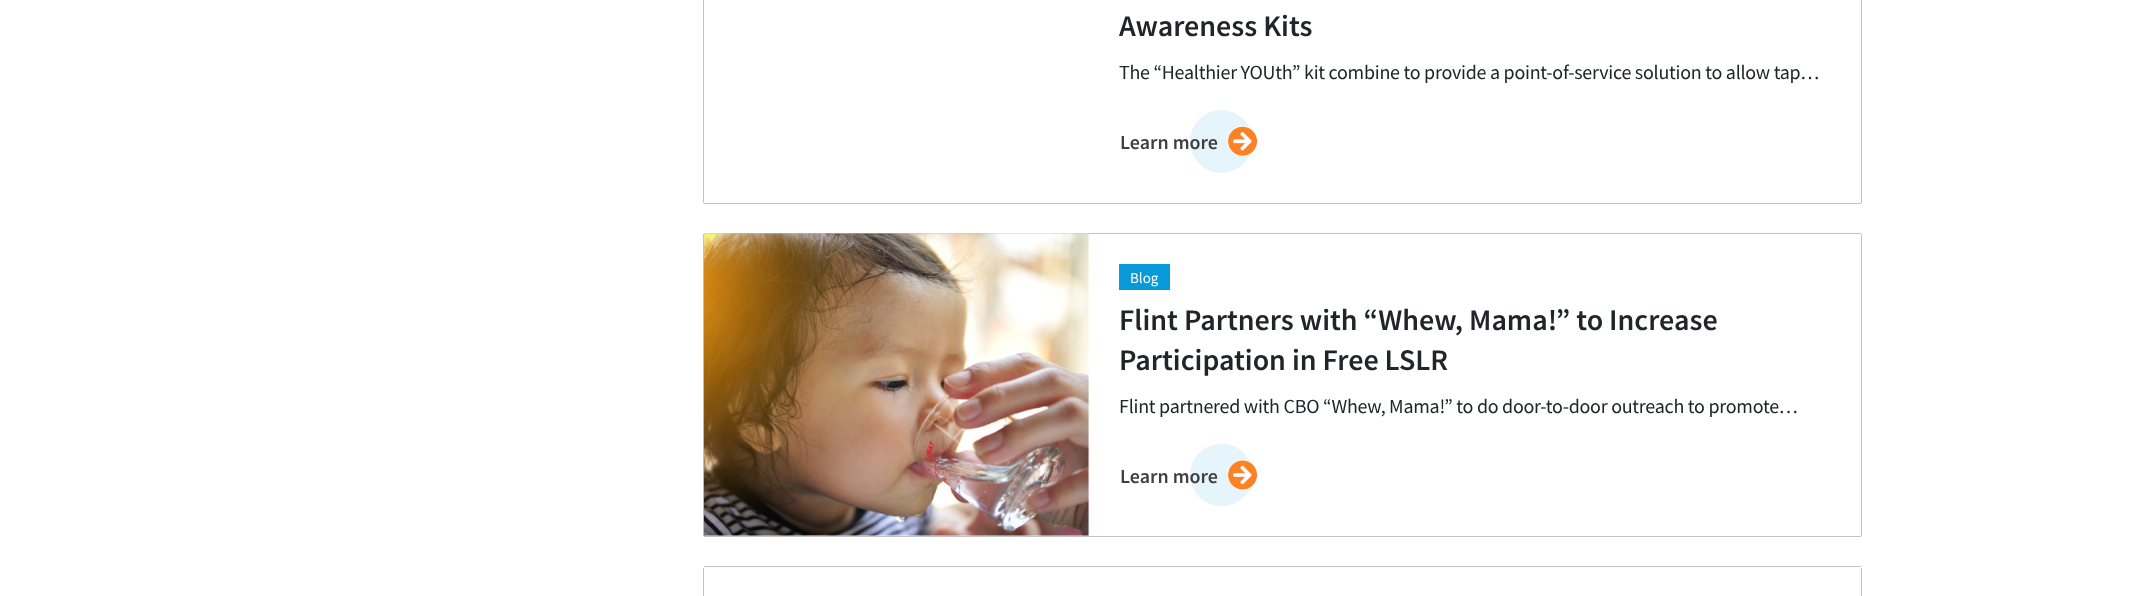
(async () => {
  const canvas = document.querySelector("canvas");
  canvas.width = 2137;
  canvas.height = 596;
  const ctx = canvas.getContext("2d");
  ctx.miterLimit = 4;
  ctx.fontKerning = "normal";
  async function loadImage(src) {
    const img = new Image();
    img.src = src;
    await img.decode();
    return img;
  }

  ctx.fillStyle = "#ffffff";
  ctx.fillRect(0, 0, 2137, 596);
  for (const [x, y, w, h, color] of [
    [703, 0, 1, 203, "#c3c3c3"],
    [1861, 0, 1, 203, "#c3c3c3"],
    [704, 203, 1157, 1, "#c3c3c3"],
  ]) {
    ctx.fillStyle = color;
    ctx.fillRect(x, y, w, h);
  }
  ctx.fillStyle = "#e6f5fb";
  ctx.beginPath();
  ctx.arc(1221.5, 141.5, 31.5, 0, Math.PI * 2);
  ctx.fill();
  ctx.fillStyle = "#ffffff";
  ctx.beginPath();
  ctx.arc(1243, 141, 15, 0, Math.PI * 2);
  ctx.fill();
  ctx.drawImage(await loadImage("img/1.png"), 1228, 126, 29, 30);
  ctx.fillStyle = "#c3c3c3";
  ctx.fillRect(703, 234, 1, 302);
  ctx.fillRect(704, 233, 1157, 1);
  ctx.drawImage(await loadImage("img/2.png"), 703, 233, 386, 303);
  for (const [x, y, w, h, color] of [
    [1861, 234, 1, 302, "#c3c3c3"],
    [704, 536, 1157, 1, "#c3c3c3"],
    [1119, 264, 51, 26, "#0899d9"],
  ]) {
    ctx.fillStyle = color;
    ctx.fillRect(x, y, w, h);
  }
  ctx.fillStyle = "#e6f5fb";
  ctx.beginPath();
  ctx.roundRect(1190, 444, 63, 62, 31);
  ctx.fill();
  ctx.fillStyle = "#ffffff";
  ctx.beginPath();
  ctx.arc(1243, 475, 15, 0, Math.PI * 2);
  ctx.fill();
  ctx.drawImage(await loadImage("img/3.png"), 1228, 460, 29, 30);
  for (const [x, y, w, h, color] of [
    [703, 568, 1, 28, "#c3c3c3"],
    [704, 566, 1157, 1, "#c3c3c3"],
    [1861, 568, 1, 28, "#c3c3c3"],
  ]) {
    ctx.fillStyle = color;
    ctx.fillRect(x, y, w, h);
  }
  ctx.font = "600 30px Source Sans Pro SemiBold";
  ctx.fillStyle = "#212529";
  ctx.fillText("Awareness Kits", 1119, 36);
  ctx.letterSpacing = "-0.25px";
  ctx.font = "20px Source Sans Pro";
  ctx.fillText("The “Healthier YOUth” kit combine to provide a point-of-service solution to allow tap…", 1119, 79);
  ctx.letterSpacing = "0px";
  ctx.font = "600 20px Source Sans Pro SemiBold";
  ctx.fillStyle = "#404040";
  ctx.fillText("Learn more", 1120, 149);
  ctx.font = "15px Source Sans Pro";
  ctx.fillStyle = "#ffffff";
  ctx.fillText("Blog", 1130, 283);
  ctx.font = "600 30px Source Sans Pro SemiBold";
  ctx.fillStyle = "#212529";
  ctx.fillText("Flint Partners with “Whew, Mama!” to Increase", 1119, 330);
  ctx.fillText("Participation in Free LSLR", 1119, 370);
  ctx.letterSpacing = "-0.25px";
  ctx.font = "20px Source Sans Pro";
  ctx.fillText("Flint partnered with CBO “Whew, Mama!” to do door-to-door outreach to promote…", 1119, 413);
  ctx.letterSpacing = "0px";
  ctx.font = "600 20px Source Sans Pro SemiBold";
  ctx.fillStyle = "#404040";
  ctx.fillText("Learn more", 1120, 483);
})();
